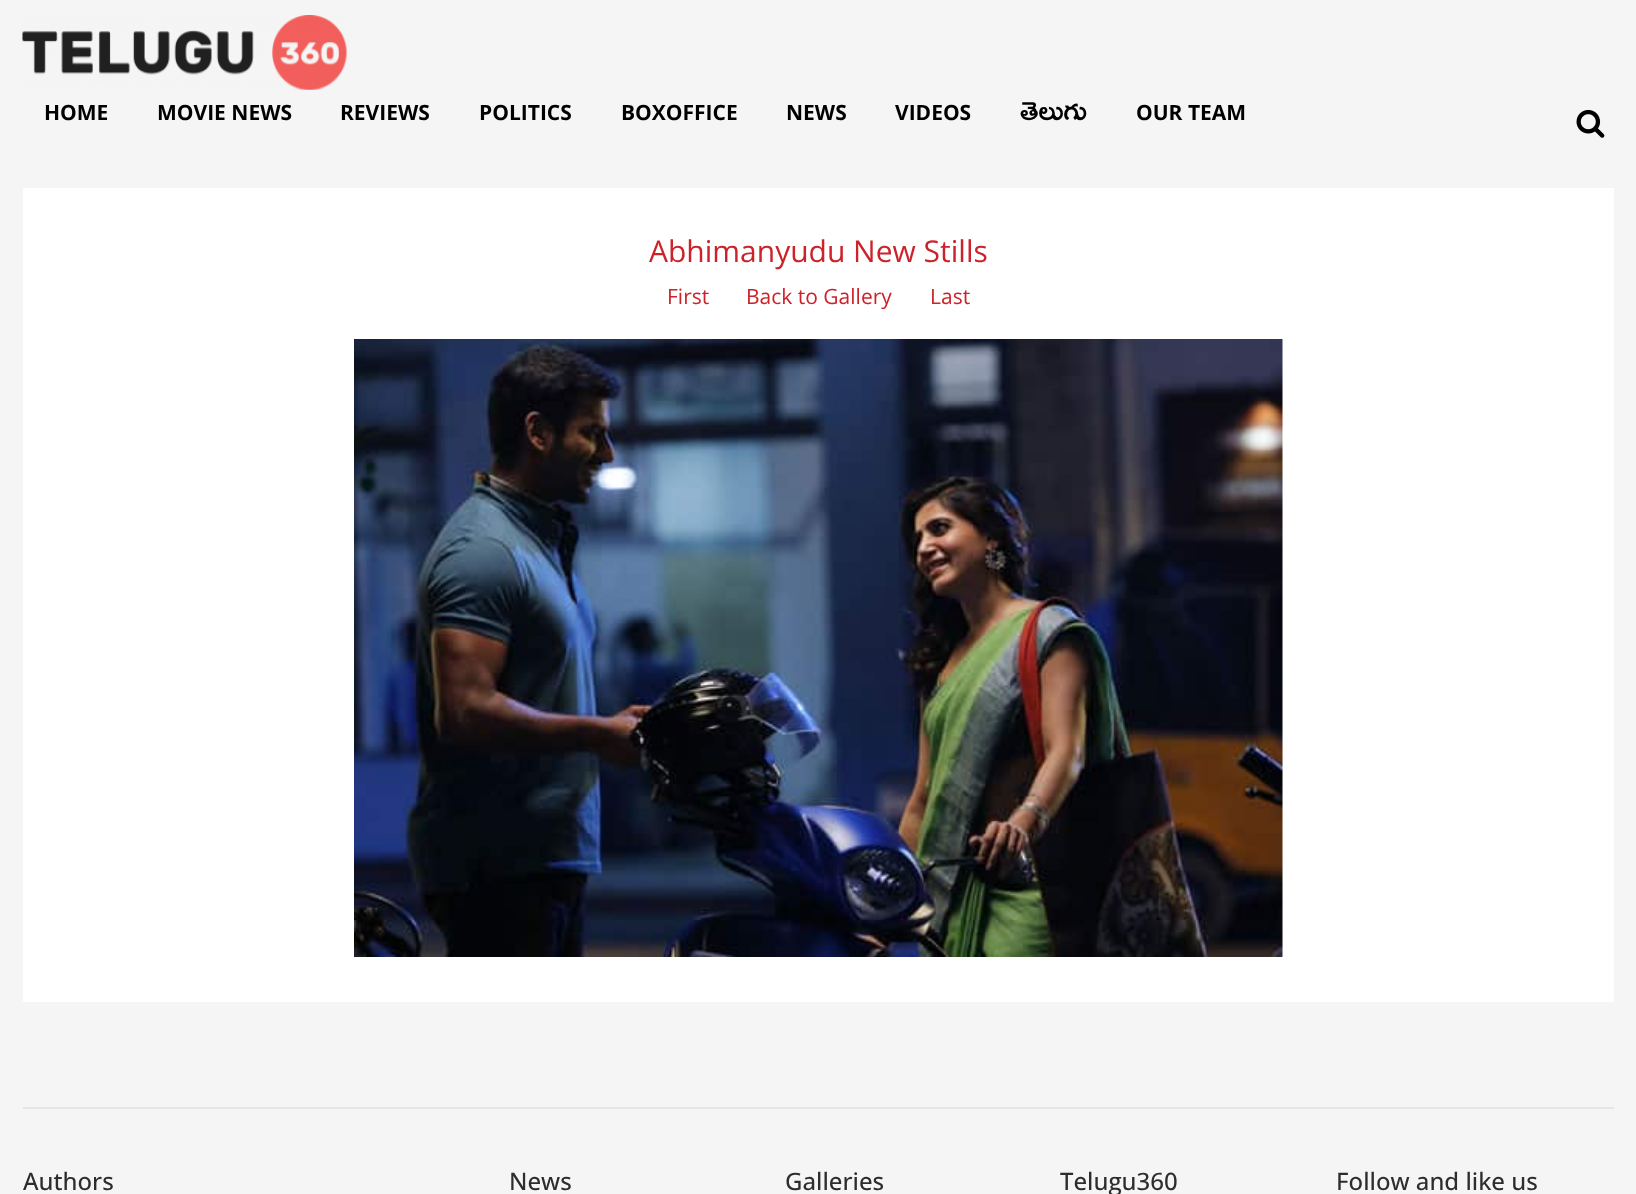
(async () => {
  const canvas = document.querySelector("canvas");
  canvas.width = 1636;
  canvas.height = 1194;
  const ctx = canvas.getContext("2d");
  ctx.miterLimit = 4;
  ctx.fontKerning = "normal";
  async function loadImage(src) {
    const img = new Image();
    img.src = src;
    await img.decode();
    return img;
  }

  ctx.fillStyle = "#f5f5f5";
  ctx.fillRect(0, 0, 1636, 1194);
  ctx.drawImage(await loadImage("img/1.png"), 22, 15, 325, 75);
  ctx.drawImage(await loadImage("img/2.png"), 1576, 109, 29, 29);
  ctx.fillStyle = "#ffffff";
  ctx.fillRect(23, 188, 1591, 814);
  ctx.drawImage(await loadImage("img/3.png"), 354, 339, 929, 618);
  ctx.fillStyle = "#e5e5e5";
  ctx.fillRect(23, 1107, 1591, 2);
  ctx.font = "bold 21px Open Sans";
  ctx.fillStyle = "#000000";
  for (const [text, x, y] of [
    ["HOME", 44, 120],
    ["MOVIE NEWS", 157, 120],
    ["REVIEWS", 340, 120],
    ["POLITICS", 479, 120],
    ["BOXOFFICE", 621, 120],
    ["NEWS", 786, 120],
    ["VIDEOS", 895, 120],
  ]) {
    ctx.fillText(text, x, y);
  }
  ctx.font = "30px Ramabhadra";
  ctx.fillText("తెలుగు", 1020, 120);
  ctx.font = "bold 21px Open Sans";
  ctx.fillText("OUR TEAM", 1136, 120);
  ctx.font = "30px Open Sans";
  ctx.fillStyle = "#cc222a";
  ctx.fillText("Abhimanyudu New Stills", 649, 262);
  ctx.font = "21px Open Sans";
  for (const [text, x, y] of [
    ["First", 667, 304],
    ["Back to Gallery", 746, 304],
    ["Last", 930, 304],
  ]) {
    ctx.fillText(text, x, y);
  }
  ctx.font = "500 24px Open Sans";
  ctx.fillStyle = "#2d2d2d";
  for (const [text, x, y] of [
    ["Authors", 23, 1190],
    ["News", 509, 1190],
    ["Galleries", 785, 1190],
    ["Telugu360", 1060, 1190],
    ["Follow and like us", 1336, 1190],
  ]) {
    ctx.fillText(text, x, y);
  }
})();
